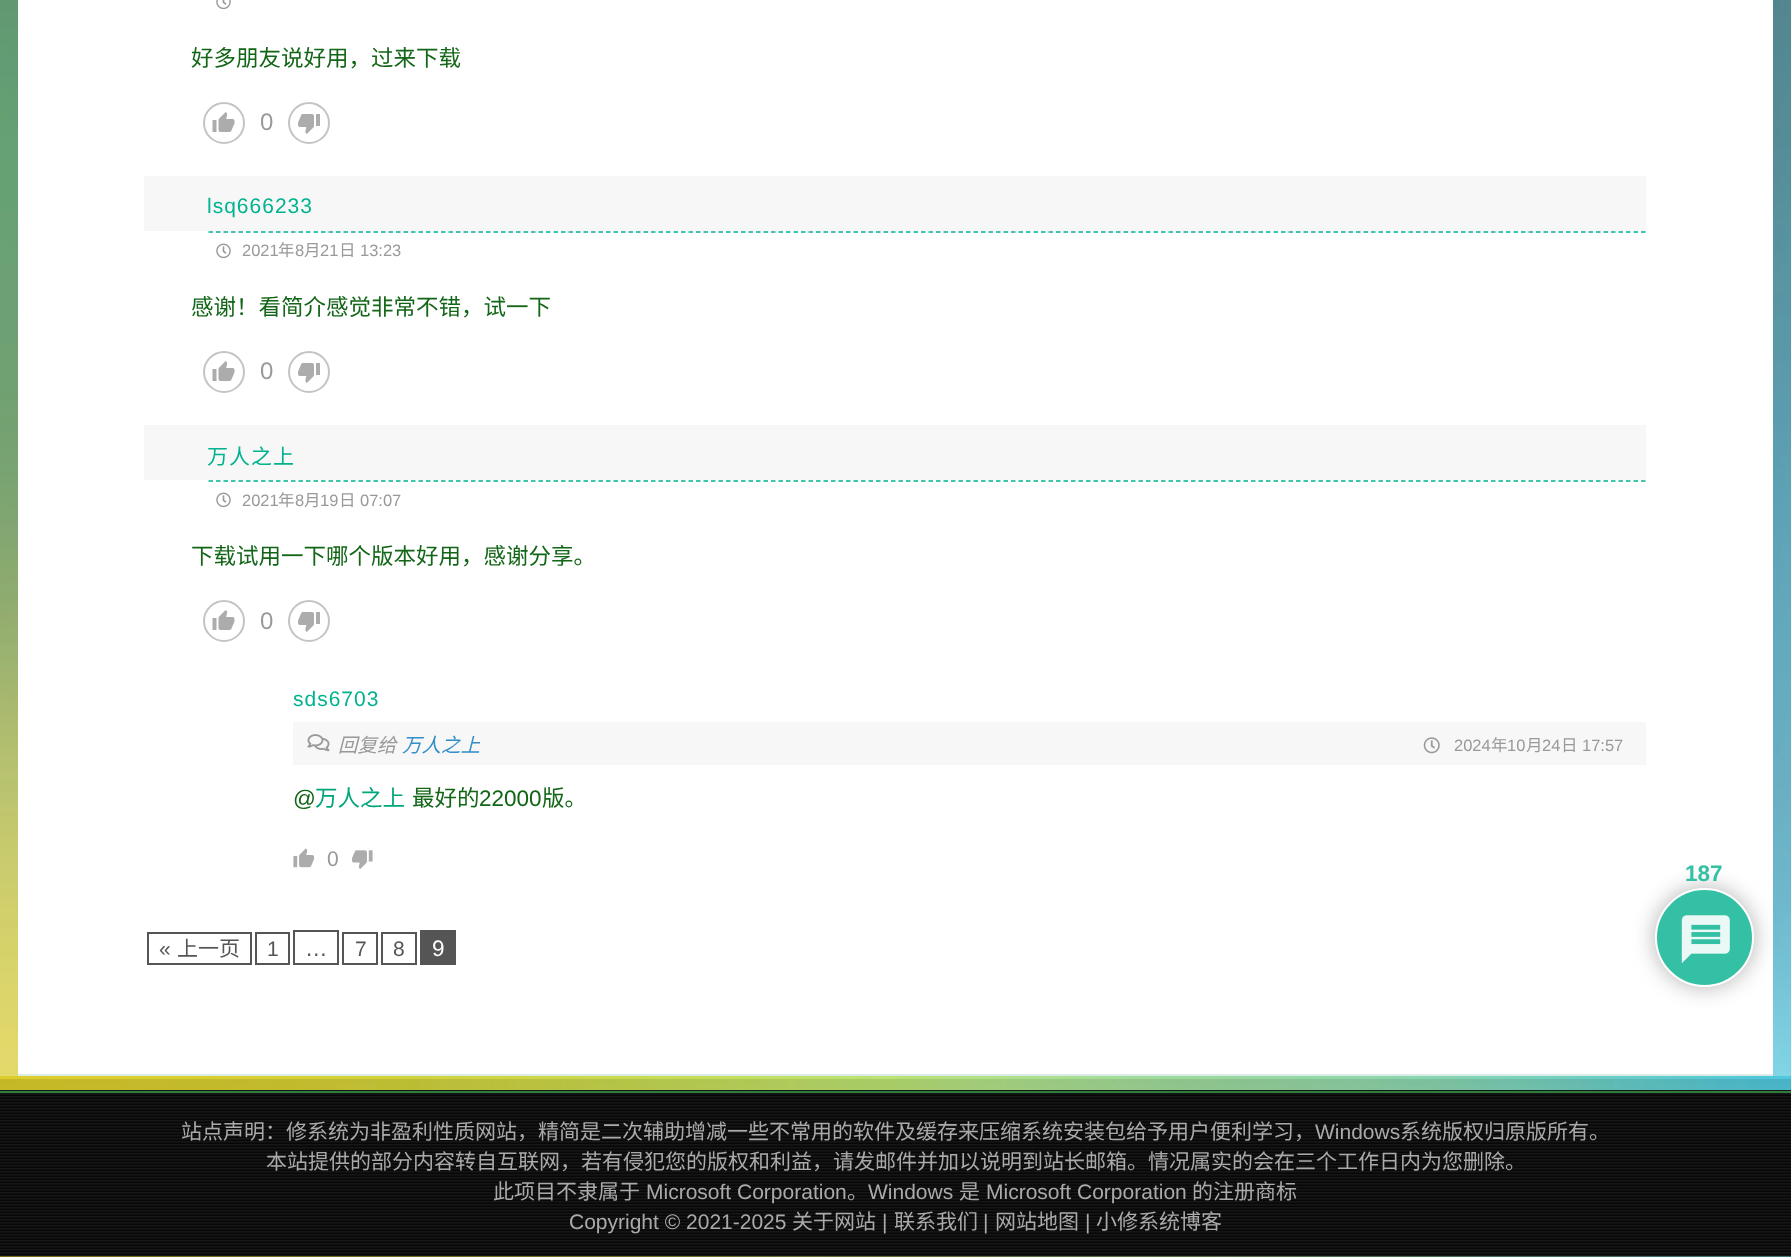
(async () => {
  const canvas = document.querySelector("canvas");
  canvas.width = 1791;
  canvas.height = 1257;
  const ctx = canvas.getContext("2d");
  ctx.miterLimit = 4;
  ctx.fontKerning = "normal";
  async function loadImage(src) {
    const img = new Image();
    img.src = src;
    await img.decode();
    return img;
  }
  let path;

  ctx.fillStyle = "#ffffff";
  ctx.fillRect(0, 0, 1791, 1257);
  ctx.drawImage(await loadImage("img/1.png"), 0, 0, 1791, 1257);
  for (const [x, y, w, h, color] of [
    [0, 0, 1791, 1076, "rgba(244, 244, 244, 0.31)"],
    [18, 0, 1755, 1074, "#ffffff"],
    [18, 1074, 1755, 2, "#dbece8"],
  ]) {
    ctx.fillStyle = color;
    ctx.fillRect(x, y, w, h);
  }
  ctx.drawImage(await loadImage("img/2.png"), 216, 0, 15, 10);
  ctx.beginPath();
  ctx.arc(224, 123, 20, 0, Math.PI * 2);
  ctx.strokeStyle = "#c4c4c4";
  ctx.lineWidth = 2;
  ctx.stroke();
  ctx.drawImage(await loadImage("img/3.png"), 212, 112, 23, 20);
  ctx.beginPath();
  ctx.arc(309, 123, 20, 0, Math.PI * 2);
  ctx.stroke();
  ctx.drawImage(await loadImage("img/4.png"), 298, 114, 22, 20);
  ctx.fillStyle = "#f7f7f7";
  ctx.fillRect(144, 176, 1502, 55);
  path = new Path2D("M208.5 232H1645.5");
  ctx.strokeStyle = "#00b38f";
  ctx.lineWidth = 1.5;
  ctx.setLineDash([4.5, 3]);
  ctx.stroke(path);
  ctx.drawImage(await loadImage("img/5.png"), 216, 243, 15, 16);
  ctx.beginPath();
  ctx.arc(224, 372, 20, 0, Math.PI * 2);
  ctx.strokeStyle = "#c4c4c4";
  ctx.lineWidth = 2;
  ctx.setLineDash([]);
  ctx.stroke();
  ctx.drawImage(await loadImage("img/3.png"), 212, 361, 23, 20);
  ctx.beginPath();
  ctx.arc(309, 372, 20, 0, Math.PI * 2);
  ctx.stroke();
  ctx.drawImage(await loadImage("img/4.png"), 298, 363, 22, 20);
  ctx.fillRect(144, 425, 1502, 55);
  path = new Path2D("M208.5 481H1645.5");
  ctx.strokeStyle = "#00b38f";
  ctx.lineWidth = 1.5;
  ctx.setLineDash([4.5, 3]);
  ctx.stroke(path);
  ctx.drawImage(await loadImage("img/5.png"), 216, 492, 15, 16);
  ctx.beginPath();
  ctx.arc(224, 621, 20, 0, Math.PI * 2);
  ctx.strokeStyle = "#c4c4c4";
  ctx.lineWidth = 2;
  ctx.setLineDash([]);
  ctx.stroke();
  ctx.drawImage(await loadImage("img/3.png"), 212, 610, 23, 20);
  ctx.beginPath();
  ctx.arc(309, 621, 20, 0, Math.PI * 2);
  ctx.stroke();
  ctx.drawImage(await loadImage("img/4.png"), 298, 612, 22, 20);
  ctx.fillRect(293, 722, 1353, 43);
  ctx.drawImage(await loadImage("img/6.png"), 307, 734, 23, 18);
  ctx.drawImage(await loadImage("img/7.png"), 1423, 737, 17, 17);
  ctx.drawImage(await loadImage("img/8.png"), 293, 848, 22, 20);
  ctx.drawImage(await loadImage("img/9.png"), 351, 850, 22, 19);
  ctx.strokeStyle = "#555555";
  ctx.strokeRect(148, 933, 103, 31);
  ctx.strokeRect(256, 933, 33, 31);
  ctx.strokeRect(294, 931, 44, 33);
  ctx.strokeRect(343, 933, 34, 31);
  ctx.strokeRect(382, 933, 34, 31);
  ctx.fillStyle = "#555555";
  ctx.fillRect(420, 930, 36, 35);
  ctx.fillStyle = "rgba(170, 170, 170, 0.9)";
  ctx.filter = "blur(11px)";
  ctx.beginPath();
  ctx.roundRect(1655, 888, 99, 99, 49.5);
  ctx.fill();
  ctx.filter = "none";
  ctx.fillStyle = "#34c0a4";
  ctx.beginPath();
  ctx.arc(1704.5, 937.5, 48.5, 0, Math.PI * 2);
  ctx.fill();
  ctx.strokeStyle = "#ffffff";
  ctx.stroke();
  ctx.drawImage(await loadImage("img/10.png"), 1681, 915, 49, 49);
  ctx.fillStyle = "rgba(0, 0, 0, 0.1)";
  ctx.fillRect(0, 1079, 1791, 11);
  ctx.drawImage(await loadImage("img/11.png"), 0, 1090, 1791, 167);
  ctx.fillStyle = "#2d7e3b";
  ctx.fillRect(0, 1091, 1791, 2);
  ctx.font = "22.5px Noto Sans CJK SC";
  ctx.fillStyle = "#136617";
  ctx.fillText("好多朋友说好用，过来下载", 191, 66);
  ctx.font = "24px Liberation Sans";
  ctx.fillStyle = "#999999";
  ctx.fillText("0", 260, 130);
  ctx.letterSpacing = "1px";
  ctx.font = "21px Liberation Sans";
  ctx.fillStyle = "#00b38f";
  ctx.fillText("lsq666233", 207, 213);
  ctx.letterSpacing = "0px";
  ctx.font = "16.5px Liberation Sans";
  ctx.fillStyle = "#999999";
  ctx.fillText("2021", 242, 256);
  ctx.font = "16.5px Noto Sans CJK SC";
  ctx.fillText("年", 278, 256);
  ctx.font = "16.5px Liberation Sans";
  ctx.fillText("8", 295, 256);
  ctx.font = "16.5px Noto Sans CJK SC";
  ctx.fillText("月", 304, 256);
  ctx.font = "16.5px Liberation Sans";
  ctx.fillText("21", 320, 256);
  ctx.font = "16.5px Noto Sans CJK SC";
  ctx.fillText("日", 339, 256);
  ctx.font = "16.5px Liberation Sans";
  ctx.fillText("13:23", 360, 256);
  ctx.font = "22.5px Noto Sans CJK SC";
  ctx.fillStyle = "#136617";
  ctx.fillText("感谢！看简介感觉非常不错，试一下", 191, 315);
  ctx.font = "24px Liberation Sans";
  ctx.fillStyle = "#999999";
  ctx.fillText("0", 260, 379);
  ctx.letterSpacing = "1px";
  ctx.font = "21px Noto Sans CJK SC";
  ctx.fillStyle = "#00b38f";
  ctx.fillText("万人之上", 207, 464);
  ctx.letterSpacing = "0px";
  ctx.font = "16.5px Liberation Sans";
  ctx.fillStyle = "#999999";
  ctx.fillText("2021", 242, 506);
  ctx.font = "16.5px Noto Sans CJK SC";
  ctx.fillText("年", 278, 506);
  ctx.font = "16.5px Liberation Sans";
  ctx.fillText("8", 295, 506);
  ctx.font = "16.5px Noto Sans CJK SC";
  ctx.fillText("月", 304, 506);
  ctx.font = "16.5px Liberation Sans";
  ctx.fillText("19", 320, 506);
  ctx.font = "16.5px Noto Sans CJK SC";
  ctx.fillText("日", 339, 506);
  ctx.font = "16.5px Liberation Sans";
  ctx.fillText("07:07", 360, 506);
  ctx.font = "22.5px Noto Sans CJK SC";
  ctx.fillStyle = "#136617";
  ctx.fillText("下载试用一下哪个版本好用，感谢分享。", 191, 564);
  ctx.font = "24px Liberation Sans";
  ctx.fillStyle = "#999999";
  ctx.fillText("0", 260, 629);
  ctx.letterSpacing = "1px";
  ctx.font = "21px Liberation Sans";
  ctx.fillStyle = "#00b38f";
  ctx.fillText("sds6703", 293, 706);
  ctx.letterSpacing = "0px";
  ctx.font = "italic 19.5px Noto Sans CJK SC";
  ctx.fillStyle = "#999999";
  ctx.fillText("回复给", 338, 752);
  ctx.fillStyle = "#338ec9";
  ctx.fillText("万人之上", 402, 752);
  ctx.font = "16.5px Liberation Sans";
  ctx.fillStyle = "#999999";
  ctx.fillText("2024", 1454, 751);
  ctx.font = "16.5px Noto Sans CJK SC";
  ctx.fillText("年", 1491, 751);
  ctx.font = "16.5px Liberation Sans";
  ctx.fillText("10", 1507, 751);
  ctx.font = "16.5px Noto Sans CJK SC";
  ctx.fillText("月", 1526, 751);
  ctx.font = "16.5px Liberation Sans";
  ctx.fillText("24", 1542, 751);
  ctx.font = "16.5px Noto Sans CJK SC";
  ctx.fillText("日", 1561, 751);
  ctx.font = "16.5px Liberation Sans";
  ctx.fillText("17:57", 1582, 751);
  ctx.font = "22.5px Liberation Sans";
  ctx.fillStyle = "#136617";
  ctx.fillText("@", 293, 806);
  ctx.font = "22.5px Noto Sans CJK SC";
  ctx.fillStyle = "#00a67c";
  ctx.fillText("万人之上", 315, 806);
  ctx.fillStyle = "#136617";
  ctx.fillText("最好的", 412, 806);
  ctx.font = "22.5px Liberation Sans";
  ctx.fillText("22000", 479, 806);
  ctx.font = "22.5px Noto Sans CJK SC";
  ctx.fillText("版。", 542, 806);
  ctx.font = "21px Liberation Sans";
  ctx.fillStyle = "#999999";
  ctx.fillText("0", 327, 866);
  ctx.fillStyle = "#555555";
  ctx.fillText("«", 159, 956);
  ctx.font = "21px Noto Sans CJK SC";
  ctx.fillText("上一页", 177, 956);
  ctx.font = "21px Liberation Sans";
  ctx.fillText("1", 267, 956);
  ctx.font = "22.5px Liberation Sans";
  ctx.fillText("…", 305, 956);
  ctx.font = "21px Liberation Sans";
  ctx.fillText("7", 355, 956);
  ctx.fillText("8", 393, 956);
  ctx.font = "22.5px Liberation Sans";
  ctx.fillStyle = "#ffffff";
  ctx.fillText("9", 432, 956);
  ctx.font = "bold 22.5px Liberation Sans";
  ctx.fillStyle = "#34c0a4";
  ctx.fillText("187", 1685, 881);
  ctx.font = "21px Noto Sans CJK SC";
  ctx.fillStyle = "#aaaaaa";
  ctx.fillText("站点声明：修系统为非盈利性质网站，精简是二次辅助增减一些不常用的软件及缓存来压缩系统安装包给予用户便利学习，", 181, 1139);
  ctx.font = "21px Liberation Sans";
  ctx.fillText("Windows", 1315, 1139);
  ctx.font = "21px Noto Sans CJK SC";
  for (const [text, x, y] of [
    ["系统版权归原版所有。", 1400, 1139],
    ["本站提供的部分内容转自互联网，若有侵犯您的版权和利益，请发邮件并加以说明到站长邮箱。情况属实的会在三个工作日内为您删除。", 266, 1169],
    ["此项目不隶属于", 493, 1199],
  ]) {
    ctx.fillText(text, x, y);
  }
  ctx.font = "21px Liberation Sans";
  ctx.fillText("Microsoft Corporation", 646, 1199);
  ctx.font = "21px Noto Sans CJK SC";
  ctx.fillText("。", 847, 1199);
  ctx.font = "21px Liberation Sans";
  ctx.fillText("Windows", 868, 1199);
  ctx.font = "21px Noto Sans CJK SC";
  ctx.fillText("是", 959, 1199);
  ctx.font = "21px Liberation Sans";
  ctx.fillText("Microsoft Corporation", 986, 1199);
  ctx.font = "21px Noto Sans CJK SC";
  ctx.fillText("的注册商标", 1192, 1199);
  ctx.font = "21px Liberation Sans";
  ctx.fillText("Copyright © 2021-2025", 569, 1229);
  ctx.font = "21px Noto Sans CJK SC";
  ctx.fillText("关于网站", 792, 1229);
  ctx.font = "21px Liberation Sans";
  ctx.fillText("|", 882, 1229);
  ctx.font = "21px Noto Sans CJK SC";
  ctx.fillText("联系我们", 894, 1229);
  ctx.font = "21px Liberation Sans";
  ctx.fillText("|", 983, 1229);
  ctx.font = "21px Noto Sans CJK SC";
  ctx.fillText("网站地图", 995, 1229);
  ctx.font = "21px Liberation Sans";
  ctx.fillText("|", 1085, 1229);
  ctx.font = "21px Noto Sans CJK SC";
  ctx.fillText("小修系统博客", 1096, 1229);
})();
